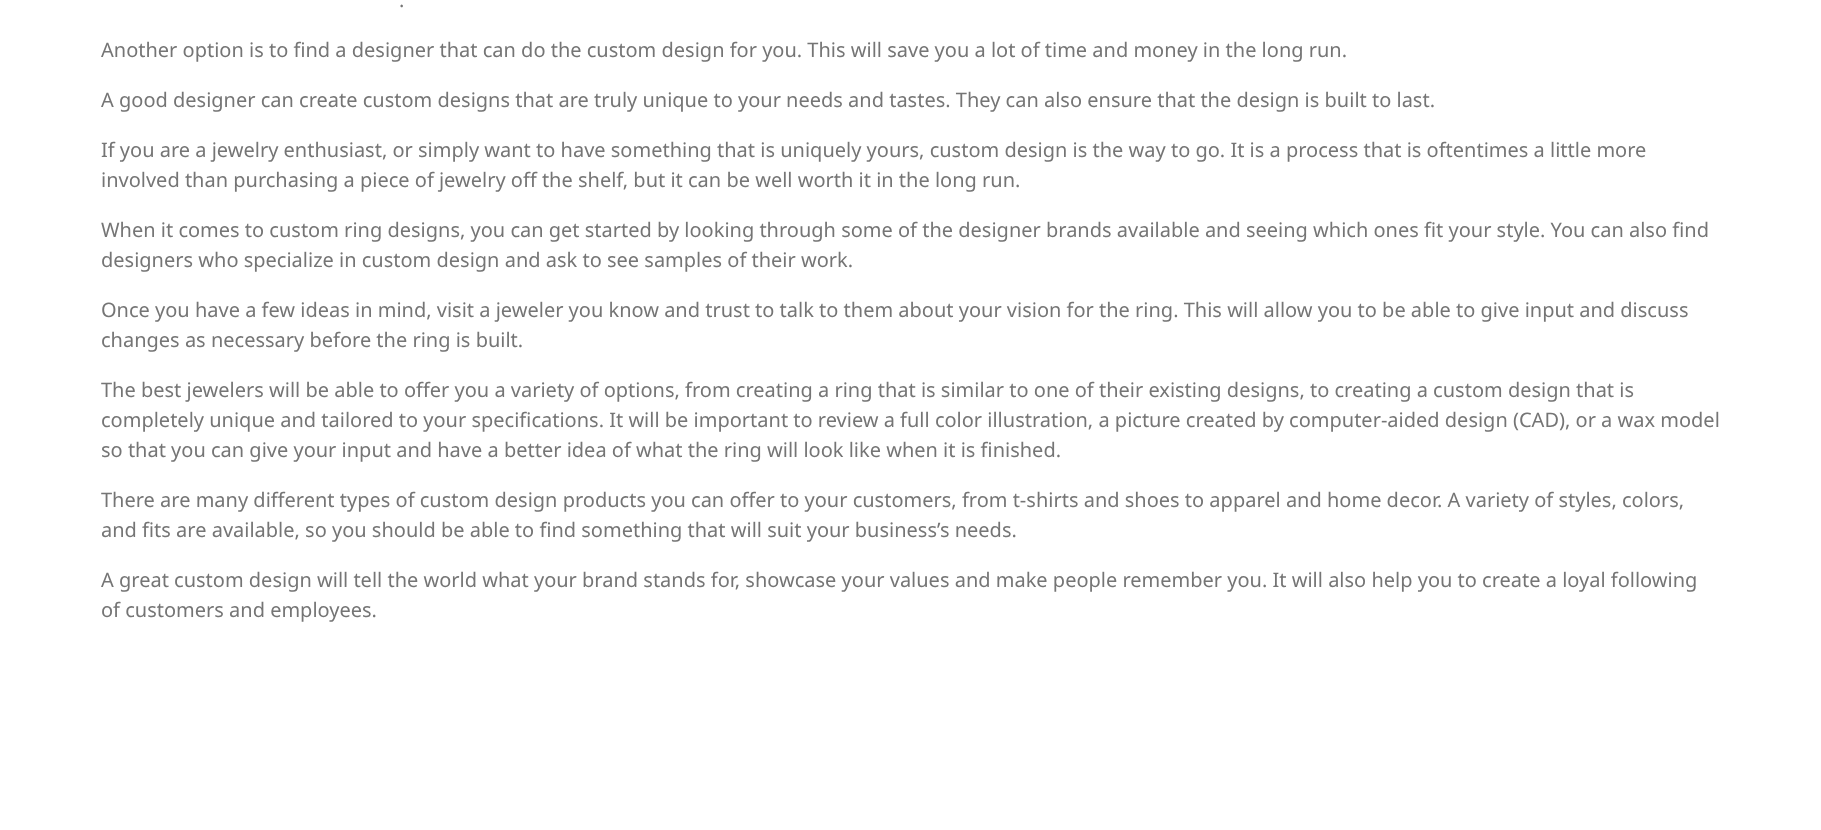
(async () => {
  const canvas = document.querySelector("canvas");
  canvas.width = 1821;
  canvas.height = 830;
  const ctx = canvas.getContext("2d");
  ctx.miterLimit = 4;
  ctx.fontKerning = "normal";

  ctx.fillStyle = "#ffffff";
  ctx.fillRect(0, 0, 1821, 830);
  ctx.font = "20px Noto Sans";
  ctx.fillStyle = "#757575";
  for (const [text, x, y] of [
    [".", 399, 7],
    ["Another option is to find a designer that can do the custom design for you. This will save you a lot of time and money in the long run.", 101, 57],
    ["A good designer can create custom designs that are truly unique to your needs and tastes. They can also ensure that the design is built to last.", 101, 107],
    ["If you are a jewelry enthusiast, or simply want to have something that is uniquely yours, custom design is the way to go. It is a process that is oftentimes a little more", 101, 157],
    ["involved than purchasing a piece of jewelry off the shelf, but it can be well worth it in the long run.", 101, 187],
    ["When it comes to custom ring designs, you can get started by looking through some of the designer brands available and seeing which ones fit your style. You can also find", 101, 237],
    ["designers who specialize in custom design and ask to see samples of their work.", 101, 267],
    ["Once you have a few ideas in mind, visit a jeweler you know and trust to talk to them about your vision for the ring. This will allow you to be able to give input and discuss", 101, 317],
    ["changes as necessary before the ring is built.", 101, 347],
    ["The best jewelers will be able to offer you a variety of options, from creating a ring that is similar to one of their existing designs, to creating a custom design that is", 101, 397],
    ["completely unique and tailored to your specifications. It will be important to review a full color illustration, a picture created by computer-aided design (CAD), or a wax model", 101, 427],
    ["so that you can give your input and have a better idea of what the ring will look like when it is finished.", 101, 457],
    ["There are many different types of custom design products you can offer to your customers, from t-shirts and shoes to apparel and home decor. A variety of styles, colors,", 101, 507],
    ["and fits are available, so you should be able to find something that will suit your business’s needs.", 101, 537],
    ["A great custom design will tell the world what your brand stands for, showcase your values and make people remember you. It will also help you to create a loyal following", 101, 587],
    ["of customers and employees.", 101, 617],
  ]) {
    ctx.fillText(text, x, y);
  }
})();
